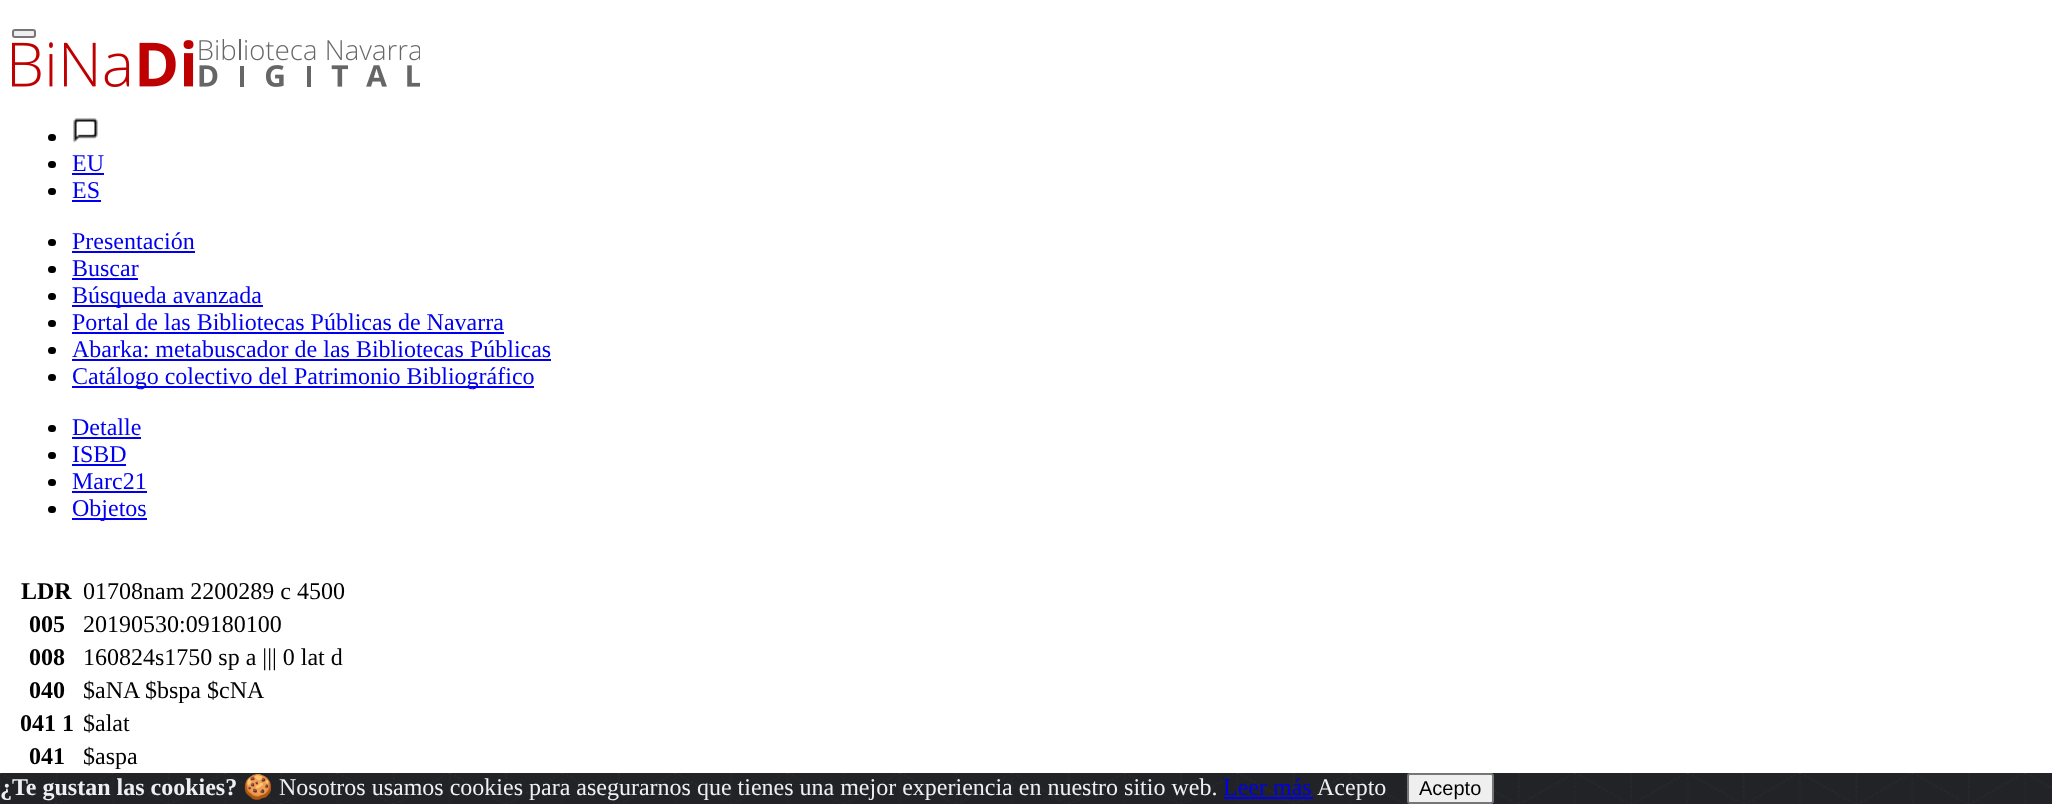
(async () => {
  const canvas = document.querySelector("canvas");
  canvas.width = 2052;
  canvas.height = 804;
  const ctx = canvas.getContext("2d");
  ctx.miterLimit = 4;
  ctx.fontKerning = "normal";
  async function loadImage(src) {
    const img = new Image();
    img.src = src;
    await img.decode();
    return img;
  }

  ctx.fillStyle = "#ffffff";
  ctx.fillRect(0, 0, 2052, 804);
  ctx.fillStyle = "#efefef";
  ctx.beginPath();
  ctx.roundRect(13, 30, 22, 7, 2);
  ctx.fill();
  ctx.strokeStyle = "#767676";
  ctx.lineWidth = 2;
  ctx.stroke();
  ctx.drawImage(await loadImage("img/1.png"), 12, 39, 408, 48);
  ctx.fillStyle = "#000000";
  ctx.beginPath();
  ctx.roundRect(48, 134, 8, 7, 3.5);
  ctx.fill();
  ctx.drawImage(await loadImage("img/2.png"), 73, 118, 25, 25);
  ctx.beginPath();
  ctx.roundRect(48, 161, 8, 7, 3.5);
  ctx.fill();
  ctx.fillStyle = "#0000ee";
  ctx.fillRect(72, 173, 32, 2);
  ctx.fillStyle = "#000000";
  ctx.beginPath();
  ctx.roundRect(48, 188, 8, 7, 3.5);
  ctx.fill();
  ctx.fillStyle = "#0000ee";
  ctx.fillRect(72, 200, 29, 2);
  ctx.fillStyle = "#000000";
  ctx.beginPath();
  ctx.roundRect(48, 239, 8, 7, 3.5);
  ctx.fill();
  ctx.fillStyle = "#0000ee";
  ctx.fillRect(72, 251, 123, 2);
  ctx.fillStyle = "#000000";
  ctx.beginPath();
  ctx.roundRect(48, 266, 8, 7, 3.5);
  ctx.fill();
  ctx.fillStyle = "#0000ee";
  ctx.fillRect(72, 278, 66, 2);
  ctx.fillStyle = "#000000";
  ctx.beginPath();
  ctx.roundRect(48, 293, 8, 7, 3.5);
  ctx.fill();
  ctx.fillStyle = "#0000ee";
  ctx.fillRect(72, 305, 191, 2);
  ctx.fillStyle = "#000000";
  ctx.beginPath();
  ctx.roundRect(48, 320, 8, 7, 3.5);
  ctx.fill();
  ctx.fillStyle = "#0000ee";
  ctx.fillRect(72, 332, 432, 2);
  ctx.fillStyle = "#000000";
  ctx.beginPath();
  ctx.roundRect(48, 347, 8, 7, 3.5);
  ctx.fill();
  ctx.fillStyle = "#0000ee";
  ctx.fillRect(72, 359, 479, 2);
  ctx.fillStyle = "#000000";
  ctx.beginPath();
  ctx.roundRect(48, 374, 8, 7, 3.5);
  ctx.fill();
  ctx.fillStyle = "#0000ee";
  ctx.fillRect(72, 386, 462, 2);
  ctx.fillStyle = "#000000";
  ctx.beginPath();
  ctx.roundRect(48, 425, 8, 7, 3.5);
  ctx.fill();
  ctx.fillStyle = "#0000ee";
  ctx.fillRect(72, 437, 69, 2);
  ctx.fillStyle = "#000000";
  ctx.beginPath();
  ctx.roundRect(48, 452, 8, 7, 3.5);
  ctx.fill();
  ctx.fillStyle = "#0000ee";
  ctx.fillRect(72, 464, 54, 2);
  ctx.fillStyle = "#000000";
  ctx.beginPath();
  ctx.roundRect(48, 479, 8, 7, 3.5);
  ctx.fill();
  ctx.fillStyle = "#0000ee";
  ctx.fillRect(72, 491, 75, 2);
  ctx.fillStyle = "#000000";
  ctx.beginPath();
  ctx.roundRect(48, 506, 8, 7, 3.5);
  ctx.fill();
  ctx.fillStyle = "#0000ee";
  ctx.fillRect(72, 518, 75, 2);
  ctx.fillStyle = "#212327";
  ctx.fillRect(2051, 773, 1, 31);
  ctx.drawImage(await loadImage("img/3.png"), 0, 773, 2051, 31);
  ctx.fillStyle = "#0000ee";
  ctx.fillRect(1224, 797, 89, 2);
  ctx.fillStyle = "#efefef";
  ctx.beginPath();
  ctx.roundRect(1408, 774, 85, 29, 2);
  ctx.fill();
  ctx.stroke();
  ctx.font = "24px Liberation Serif";
  ctx.fillStyle = "#0000ee";
  for (const [text, x, y] of [
    ["EU", 72, 171],
    ["ES", 72, 198],
    ["Presentación", 72, 249],
    ["Buscar", 72, 276],
    ["Búsqueda avanzada", 72, 303],
    ["Portal de las Bibliotecas Públicas de Navarra", 72, 330],
    ["Abarka: metabuscador de las Bibliotecas Públicas", 72, 357],
    ["Catálogo colectivo del Patrimonio Bibliográfico", 72, 384],
    ["Detalle", 72, 435],
    ["ISBD", 72, 462],
    ["Marc21", 72, 489],
    ["Objetos", 72, 516],
  ]) {
    ctx.fillText(text, x, y);
  }
  ctx.font = "bold 24px Liberation Serif";
  ctx.fillStyle = "#000000";
  ctx.fillText("LDR", 21, 599);
  ctx.font = "24px Liberation Serif";
  ctx.fillText("01708nam 2200289 c 4500", 83, 599);
  ctx.font = "bold 24px Liberation Serif";
  ctx.fillText("005", 29, 632);
  ctx.font = "24px Liberation Serif";
  ctx.fillText("20190530:09180100", 83, 632);
  ctx.font = "bold 24px Liberation Serif";
  ctx.fillText("008", 29, 665);
  ctx.font = "24px Liberation Serif";
  ctx.fillText("160824s1750 sp a ||| 0 lat d", 83, 665);
  ctx.font = "bold 24px Liberation Serif";
  ctx.fillText("040", 29, 698);
  ctx.font = "24px Liberation Serif";
  ctx.fillText("$aNA $bspa $cNA", 83, 698);
  ctx.font = "bold 24px Liberation Serif";
  ctx.fillText("041 1", 20, 731);
  ctx.font = "24px Liberation Serif";
  ctx.fillText("$alat", 83, 731);
  ctx.font = "bold 24px Liberation Serif";
  ctx.fillText("041", 29, 764);
  ctx.font = "24px Liberation Serif";
  ctx.fillText("$aspa", 83, 764);
  ctx.font = "bold 24px Liberation Serif";
  ctx.fillStyle = "#ecf0f1";
  ctx.fillText("¿Te gustan las cookies?", 0, 795);
  ctx.font = "24px Noto Color Emoji";
  ctx.fillText("🍪", 243, 795);
  ctx.font = "24px Liberation Serif";
  ctx.fillText("Nosotros usamos cookies para asegurarnos que tienes una mejor experiencia en nuestro sitio web.", 279, 795);
  ctx.fillStyle = "#0000ee";
  ctx.fillText("Leer más", 1223, 795);
  ctx.fillStyle = "#ecf0f1";
  ctx.fillText("Acepto", 1317, 795);
  ctx.font = "20px Liberation Sans";
  ctx.fillStyle = "#000000";
  ctx.fillText("Acepto", 1419, 795);
})();
